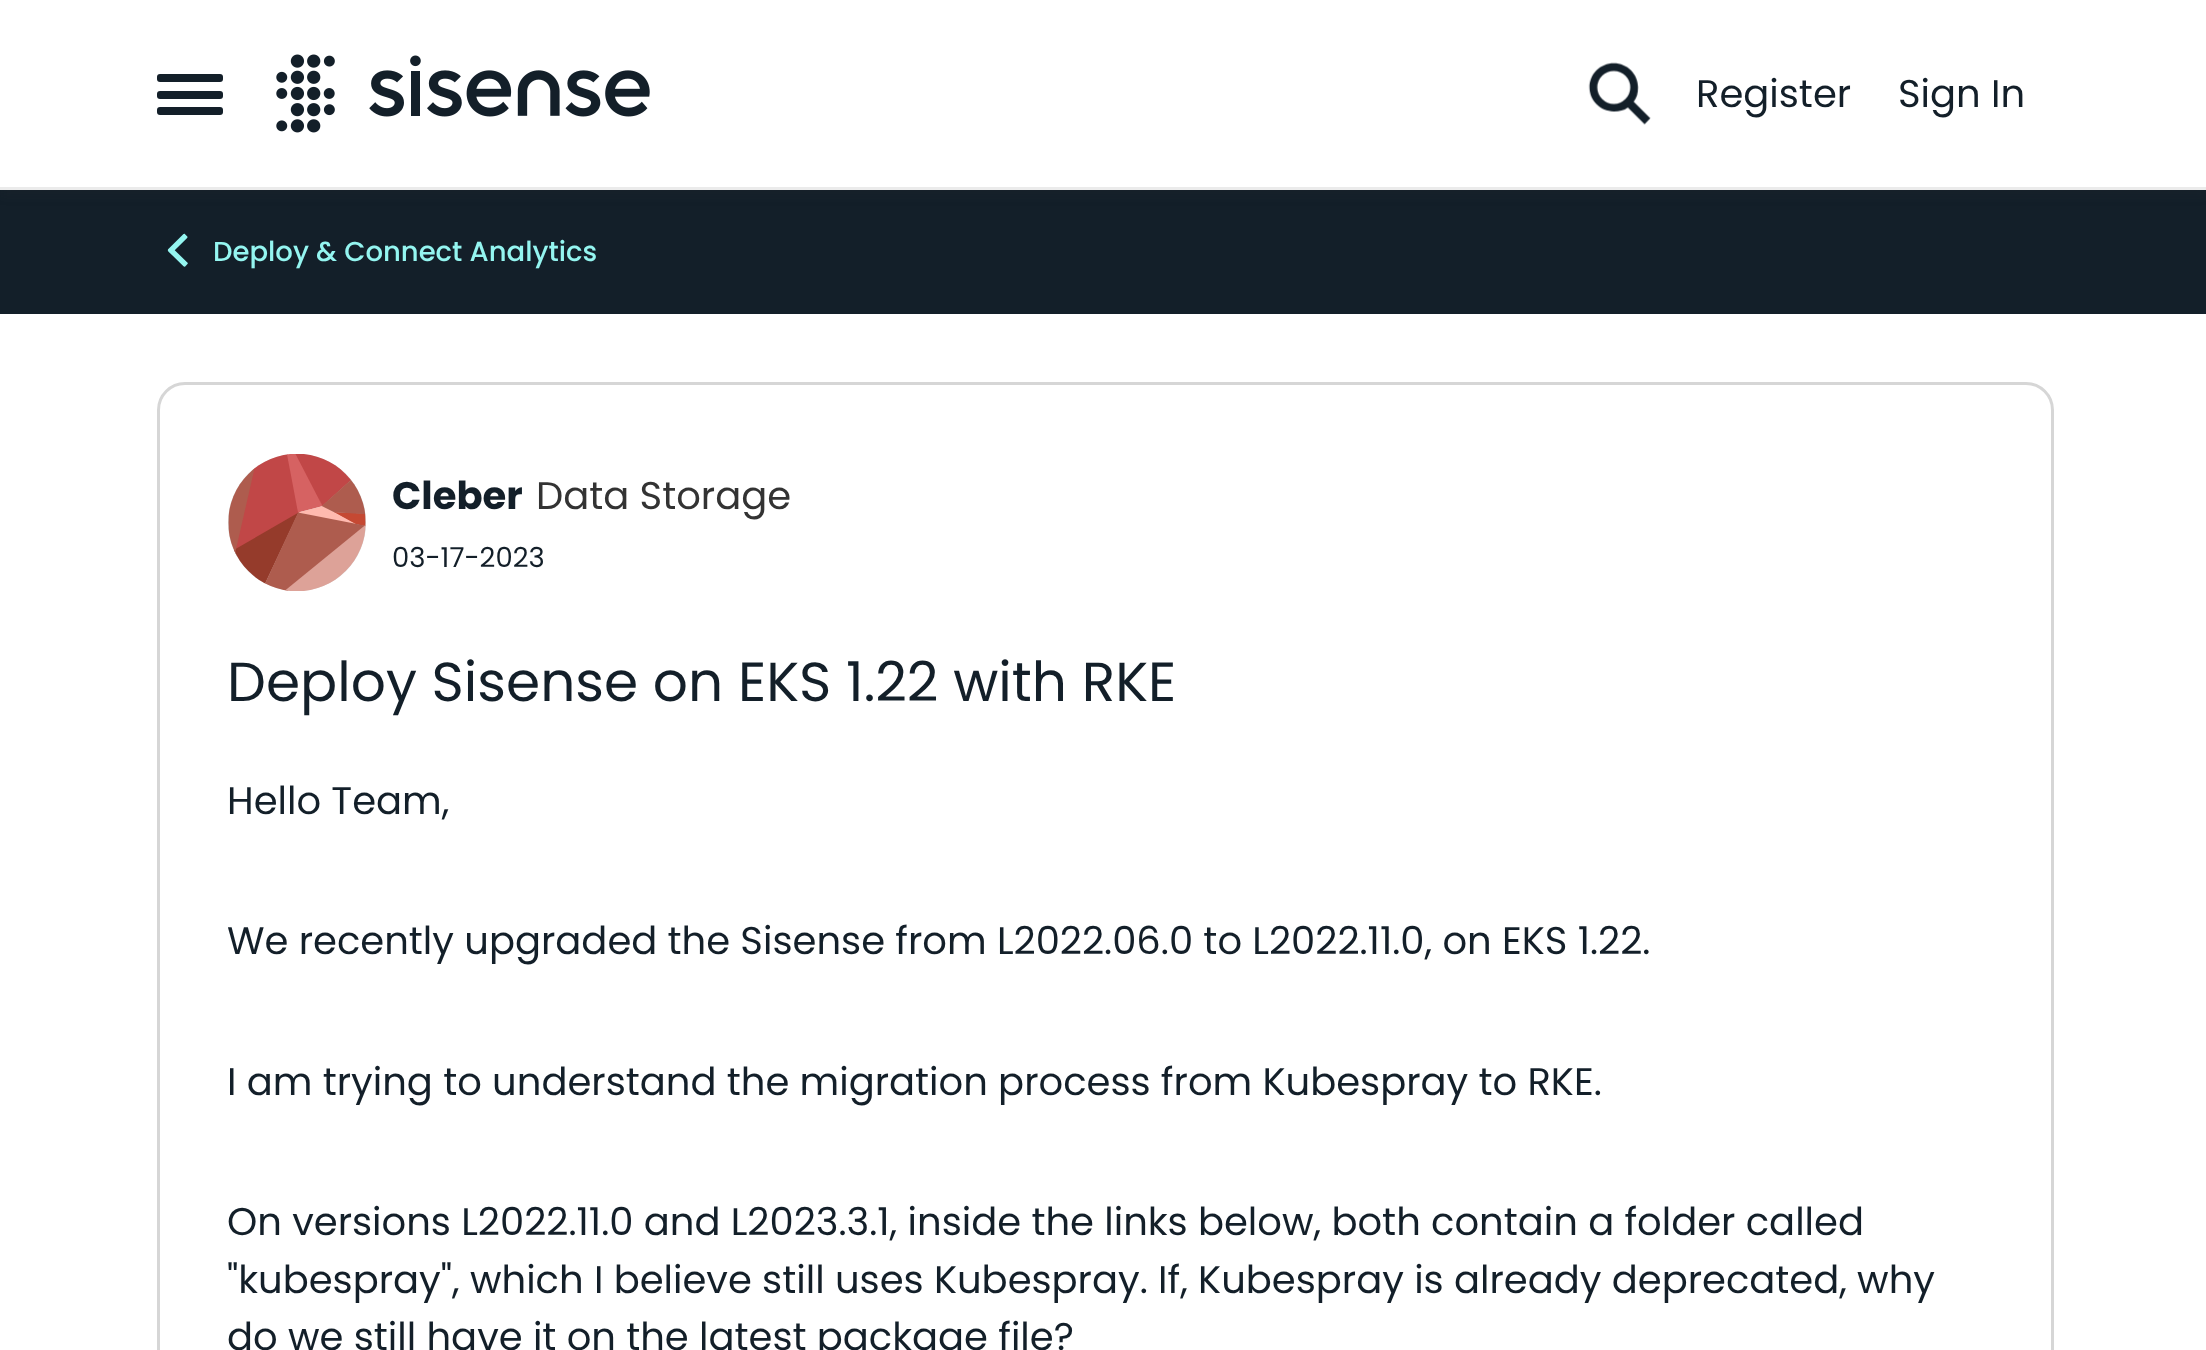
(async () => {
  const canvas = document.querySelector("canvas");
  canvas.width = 2206;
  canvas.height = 1350;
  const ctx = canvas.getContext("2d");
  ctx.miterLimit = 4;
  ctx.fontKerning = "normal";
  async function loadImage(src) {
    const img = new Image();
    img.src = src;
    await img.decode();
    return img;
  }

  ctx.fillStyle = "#ffffff";
  ctx.fillRect(0, 0, 2206, 1350);
  ctx.fillStyle = "#131f29";
  ctx.fillRect(0, 190, 2206, 124);
  ctx.fillStyle = "rgba(51, 51, 51, 0.12)";
  ctx.filter = "blur(5.5px)";
  ctx.beginPath();
  ctx.rect(0, 6, 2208, 189);
  ctx.fill();
  ctx.filter = "none";
  ctx.fillStyle = "#ffffff";
  ctx.fillRect(0, 0, 2206, 187);
  ctx.fillStyle = "#ebebeb";
  ctx.fillRect(0, 187, 2206, 3);
  ctx.fillStyle = "#131f29";
  ctx.beginPath();
  ctx.roundRect(157, 74, 66, 8, 3);
  ctx.fill();
  ctx.beginPath();
  ctx.roundRect(157, 91, 66, 8, 3);
  ctx.fill();
  ctx.beginPath();
  ctx.roundRect(157, 107, 66, 8, 3);
  ctx.fill();
  ctx.drawImage(await loadImage("img/1.png"), 276, 54, 374, 79);
  ctx.drawImage(await loadImage("img/2.png"), 1588, 62, 63, 63);
  ctx.drawImage(await loadImage("img/3.png"), 167, 233, 21, 34);
  ctx.beginPath();
  ctx.roundRect(158.5, 383.5, 1894, 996, 26.5);
  ctx.strokeStyle = "#d6d6d6";
  ctx.lineWidth = 3;
  ctx.stroke();
  ctx.fillStyle = "#d9d9d9";
  ctx.beginPath();
  ctx.roundRect(228, 454, 138, 137, 68.5);
  ctx.fill();
  ctx.drawImage(await loadImage("img/4.png"), 228, 454, 138, 137);
  ctx.font = "38.5px Poppins";
  ctx.fillStyle = "#131f29";
  ctx.fillText("Register", 1696, 107);
  ctx.fillText("Sign In", 1898, 107);
  ctx.font = "500 27.5px Poppins";
  ctx.fillStyle = "#94f5f0";
  ctx.fillText("Deploy & Connect Analytics", 213, 261);
  ctx.font = "bold 38.5px Poppins";
  ctx.fillStyle = "#131f29";
  ctx.fillText("Cleber", 392, 509);
  ctx.font = "38.5px Poppins";
  ctx.fillStyle = "#333333";
  ctx.fillText("Data Storage", 536, 509);
  ctx.font = "27.5px Poppins";
  ctx.fillStyle = "#131f29";
  ctx.fillText("03-17-2023", 392, 567);
  ctx.font = "55px Poppins";
  ctx.fillText("Deploy Sisense on EKS 1.22 with RKE", 227, 701);
  ctx.font = "38.5px Poppins";
  for (const [text, x, y] of [
    ["Hello Team,", 227, 814],
    ["We recently upgraded the Sisense from L2022.06.0 to L2022.11.0, on EKS 1.22.", 227, 954],
    ["I am trying to understand the migration process from Kubespray to RKE.", 227, 1095],
    ["On versions L2022.11.0 and L2023.3.1, inside the links below, both contain a folder called", 227, 1235],
    ["\"kubespray\", which I believe still uses Kubespray. If, Kubespray is already deprecated, why", 227, 1293],
    ["do we still have it on the latest package file?", 227, 1350],
  ]) {
    ctx.fillText(text, x, y);
  }
})();
